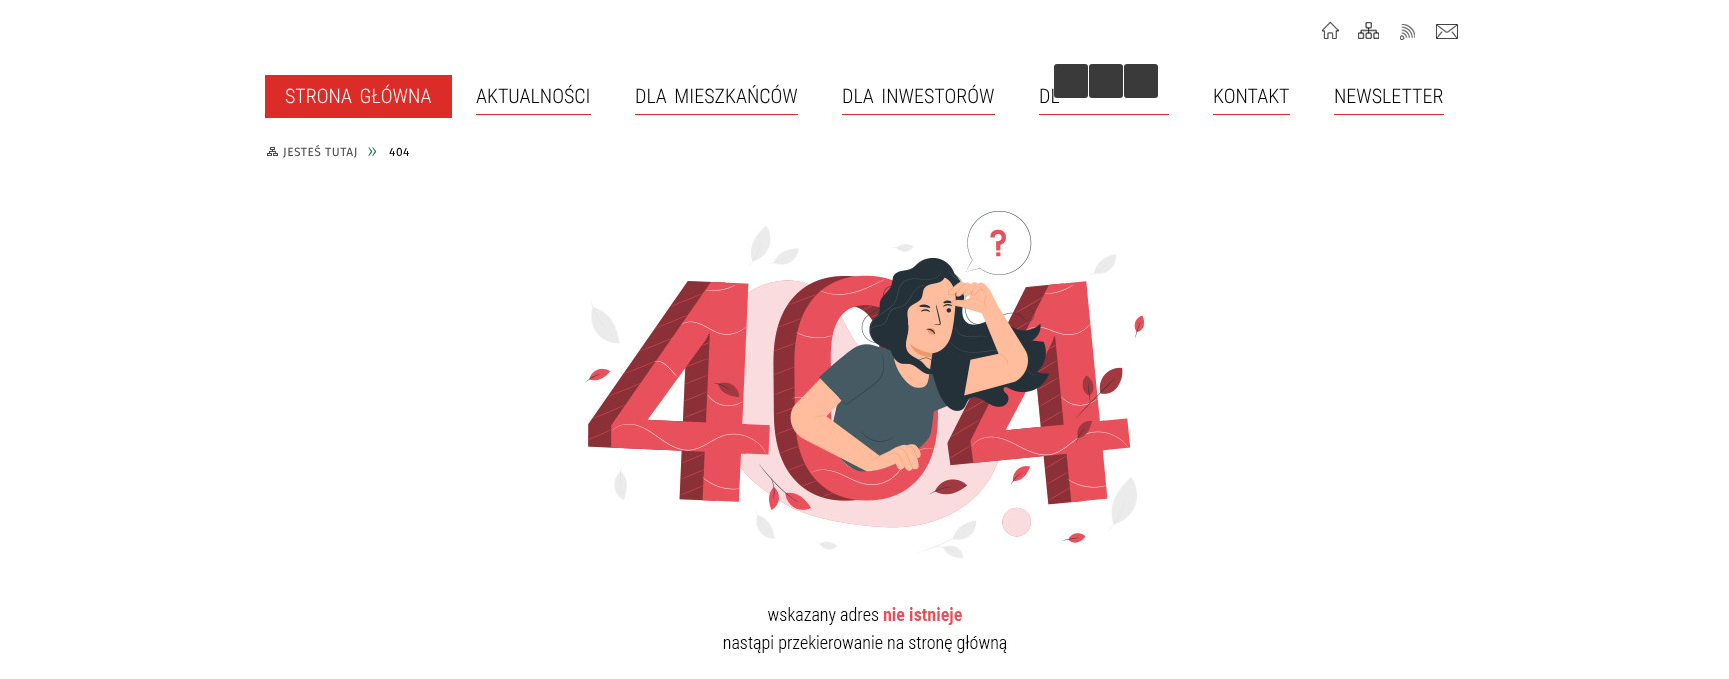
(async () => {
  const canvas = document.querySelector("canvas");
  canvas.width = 1729;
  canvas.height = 679;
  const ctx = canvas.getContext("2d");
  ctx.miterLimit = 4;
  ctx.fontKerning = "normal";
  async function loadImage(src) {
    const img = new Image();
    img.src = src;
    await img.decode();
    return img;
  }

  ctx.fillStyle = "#ffffff";
  ctx.fillRect(0, 0, 1729, 679);
  ctx.drawImage(await loadImage("img/1.png"), 1322, 22, 17, 17);
  ctx.drawImage(await loadImage("img/2.png"), 1358, 22, 21, 17);
  ctx.drawImage(await loadImage("img/3.png"), 1400, 24, 15, 16);
  ctx.drawImage(await loadImage("img/4.png"), 1436, 24, 22, 15);
  ctx.fillStyle = "#3a3a3a";
  ctx.beginPath();
  ctx.roundRect(1089, 64, 34, 34, 3);
  ctx.fill();
  ctx.beginPath();
  ctx.roundRect(1124, 64, 34, 34, 3);
  ctx.fill();
  for (const [x, y, w, h, color] of [
    [265, 75, 187, 43, "#db2c27"],
    [476, 114, 115, 1, "#db2c27"],
    [635, 114, 163, 1, "#db2c27"],
    [842, 114, 153, 1, "#db2c27"],
    [1039, 114, 130, 1, "#db2c27"],
    [1213, 114, 77, 1, "#db2c27"],
    [1334, 114, 110, 1, "#db2c27"],
  ]) {
    ctx.fillStyle = color;
    ctx.fillRect(x, y, w, h);
  }
  ctx.drawImage(await loadImage("img/5.png"), 267, 147, 11, 9);
  ctx.drawImage(await loadImage("img/6.png"), 585, 210, 560, 447);
  ctx.wordSpacing = "3px";
  ctx.font = "300 20px Roboto Condensed";
  ctx.fillStyle = "#ffffff";
  ctx.fillText("STRONA GŁÓWNA", 285, 103);
  ctx.wordSpacing = "0px";
  ctx.fillStyle = "#000000";
  ctx.fillText("AKTUALNOŚCI", 476, 103);
  ctx.wordSpacing = "3px";
  for (const [text, x, y] of [
    ["DLA MIESZKAŃCÓW", 635, 103],
    ["DLA INWESTORÓW", 842, 103],
    ["DL", 1039, 103],
  ]) {
    ctx.fillText(text, x, y);
  }
  ctx.fillStyle = "#3a3a3a";
  ctx.beginPath();
  ctx.roundRect(1054, 64, 34, 34, 3);
  ctx.fill();
  ctx.wordSpacing = "0px";
  ctx.fillStyle = "#000000";
  ctx.fillText("KONTAKT", 1213, 103);
  ctx.fillText("NEWSLETTER", 1334, 103);
  ctx.letterSpacing = "0.5px";
  ctx.font = "12px Fira Sans";
  ctx.fillStyle = "#4c4c4c";
  ctx.fillText("JESTEŚ TUTAJ", 283, 156);
  ctx.font = "300 19px Fira Sans";
  ctx.fillStyle = "#116f3a";
  ctx.fillText("»", 367, 157);
  ctx.font = "12px Fira Sans";
  ctx.fillStyle = "#000000";
  ctx.fillText("404", 389, 156);
})();
